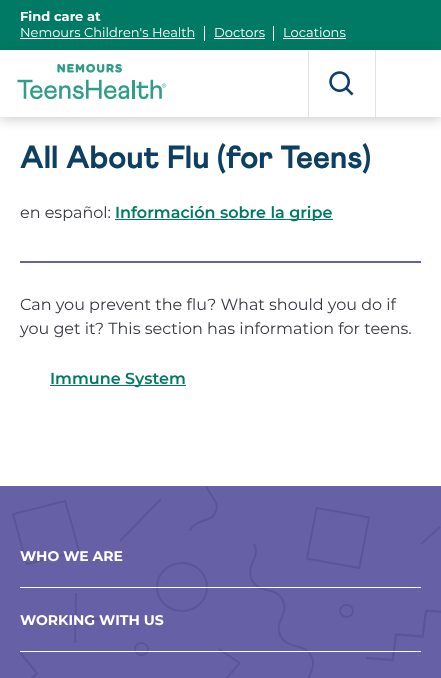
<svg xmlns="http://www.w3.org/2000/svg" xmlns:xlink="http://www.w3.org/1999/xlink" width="441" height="678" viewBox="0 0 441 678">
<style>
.cls-1{font:bold 13px Montserrat;fill:#ffffff}
.cls-2{font:13px Montserrat;fill:#ffffff}
.cls-3{font:800 32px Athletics;fill:#0d3f63}
.cls-4{font:16px Montserrat;fill:#373a41}
.cls-5{font:600 16px Montserrat;fill:#007a64}
.cls-6{font:bold 14px Montserrat;fill:#ffffff}
</style>
<defs>
<clipPath id="clip1"><path d="M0 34H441V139H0ZM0 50H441V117H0Z" clip-rule="evenodd"/></clipPath>
</defs>
<rect width="100%" height="100%" fill="#ffffff"/>
<rect fill="#007a64" x="0" y="0" width="441" height="50"/>
<rect fill="#ffffff" x="20" y="38" width="175" height="1"/>
<rect fill="#ffffff" x="204" y="26" width="1" height="15"/>
<rect fill="#ffffff" x="214" y="38" width="51" height="1"/>
<rect fill="#ffffff" x="273" y="26" width="1" height="15"/>
<rect fill="#ffffff" x="283" y="38" width="63" height="1"/>
<g clip-path="url(#clip1)">
<rect fill="#000000" fill-opacity="0.18" filter="blur(6px)" x="0" y="53" width="441" height="67"/>
</g>
<image xlink:href="image0.png" x="17" y="63" width="150" height="37"/>
<image xlink:href="image1.png" x="329" y="71" width="25" height="25"/>
<rect fill="#e0e2e9" x="308" y="50" width="1" height="67"/>
<rect fill="#e0e2e9" x="375" y="50" width="1" height="67"/>
<rect fill="#6660a6" x="20" y="261" width="401" height="2"/>
<rect fill="#007a64" x="115" y="219" width="218" height="1"/>
<rect fill="#007a64" x="50" y="385" width="136" height="1"/>
<rect fill="#6660a6" x="0" y="486" width="441" height="192"/>
<image xlink:href="image2.png" x="12" y="486" width="429" height="192"/>
<rect fill="#ffffff" x="20" y="587" width="401" height="1"/>
<rect fill="#ffffff" x="20" y="651" width="401" height="1"/>
<text class="cls-1" x="20" y="21">Find care at</text>
<text class="cls-2" x="20" y="37">Nemours Children's Health</text>
<text class="cls-2" x="214" y="37">Doctors</text>
<text class="cls-2" x="283" y="37">Locations</text>
<text class="cls-3" x="20" y="168">All About Flu (for Teens)</text>
<text class="cls-4" x="20" y="218">en español:</text>
<text class="cls-5" x="115" y="218">Información sobre la gripe</text>
<text class="cls-4"><tspan x="20" y="310">Can you prevent the flu? What should you do if</tspan><tspan x="20" y="334">you get it? This section has information for teens.</tspan></text>
<text class="cls-5" x="50" y="384">Immune System</text>
<text class="cls-6" x="20" y="561">WHO WE ARE</text>
<text class="cls-6" x="20" y="625">WORKING WITH US</text>
</svg>
